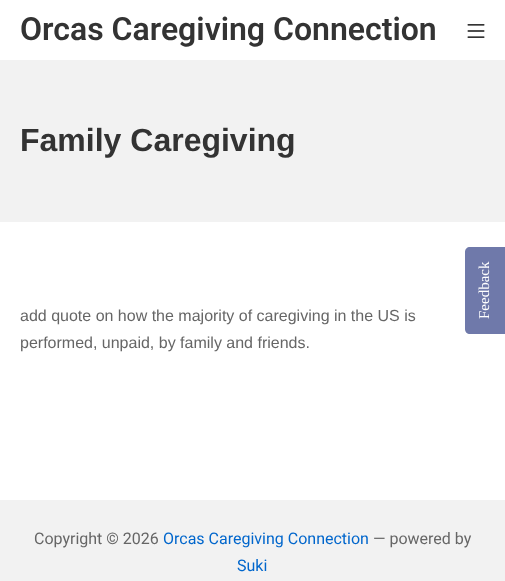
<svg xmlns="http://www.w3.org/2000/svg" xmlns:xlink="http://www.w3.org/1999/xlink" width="505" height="581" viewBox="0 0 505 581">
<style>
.cls-1{font:600 32px Roboto;fill:#333333}
.cls-2{font:bold 32px Liberation Sans;fill:#333333}
.cls-3{font:16px Liberation Sans;fill:#666666}
.cls-4{font:16px Roboto;fill:#666666}
.cls-5{font:16px Roboto;fill:#0066cc}
.cls-6{font:15px Liberation Serif;fill:#ffffff}
</style>
<rect width="100%" height="100%" fill="#ffffff"/>
<image xlink:href="image0.png" x="467" y="24" width="18" height="14"/>
<rect fill="#f2f2f2" x="0" y="60" width="505" height="162"/>
<rect fill="#f2f2f2" x="0" y="500" width="505" height="81"/>
<path fill="#6f79aa" d="M465 329V252C465 249 467 247 470 247H505V334H470C467 334 465 332 465 329Z"/>
<text class="cls-1" x="20" y="40">Orcas Caregiving Connection</text>
<text class="cls-2" x="20" y="151">Family Caregiving</text>
<text class="cls-3"><tspan x="20" y="321">add quote on how the majority of caregiving in the US is</tspan><tspan x="20" y="348">performed, unpaid, by family and friends.</tspan></text>
<text class="cls-4" x="34" y="544">Copyright © 2026</text>
<text class="cls-5" x="163" y="544">Orcas Caregiving Connection</text>
<text class="cls-4" x="373" y="544">— powered by</text>
<text class="cls-5" x="237" y="571">Suki</text>
<text class="cls-6" x="489" y="319" transform="rotate(-90 489 319)">Feedback</text>
</svg>
